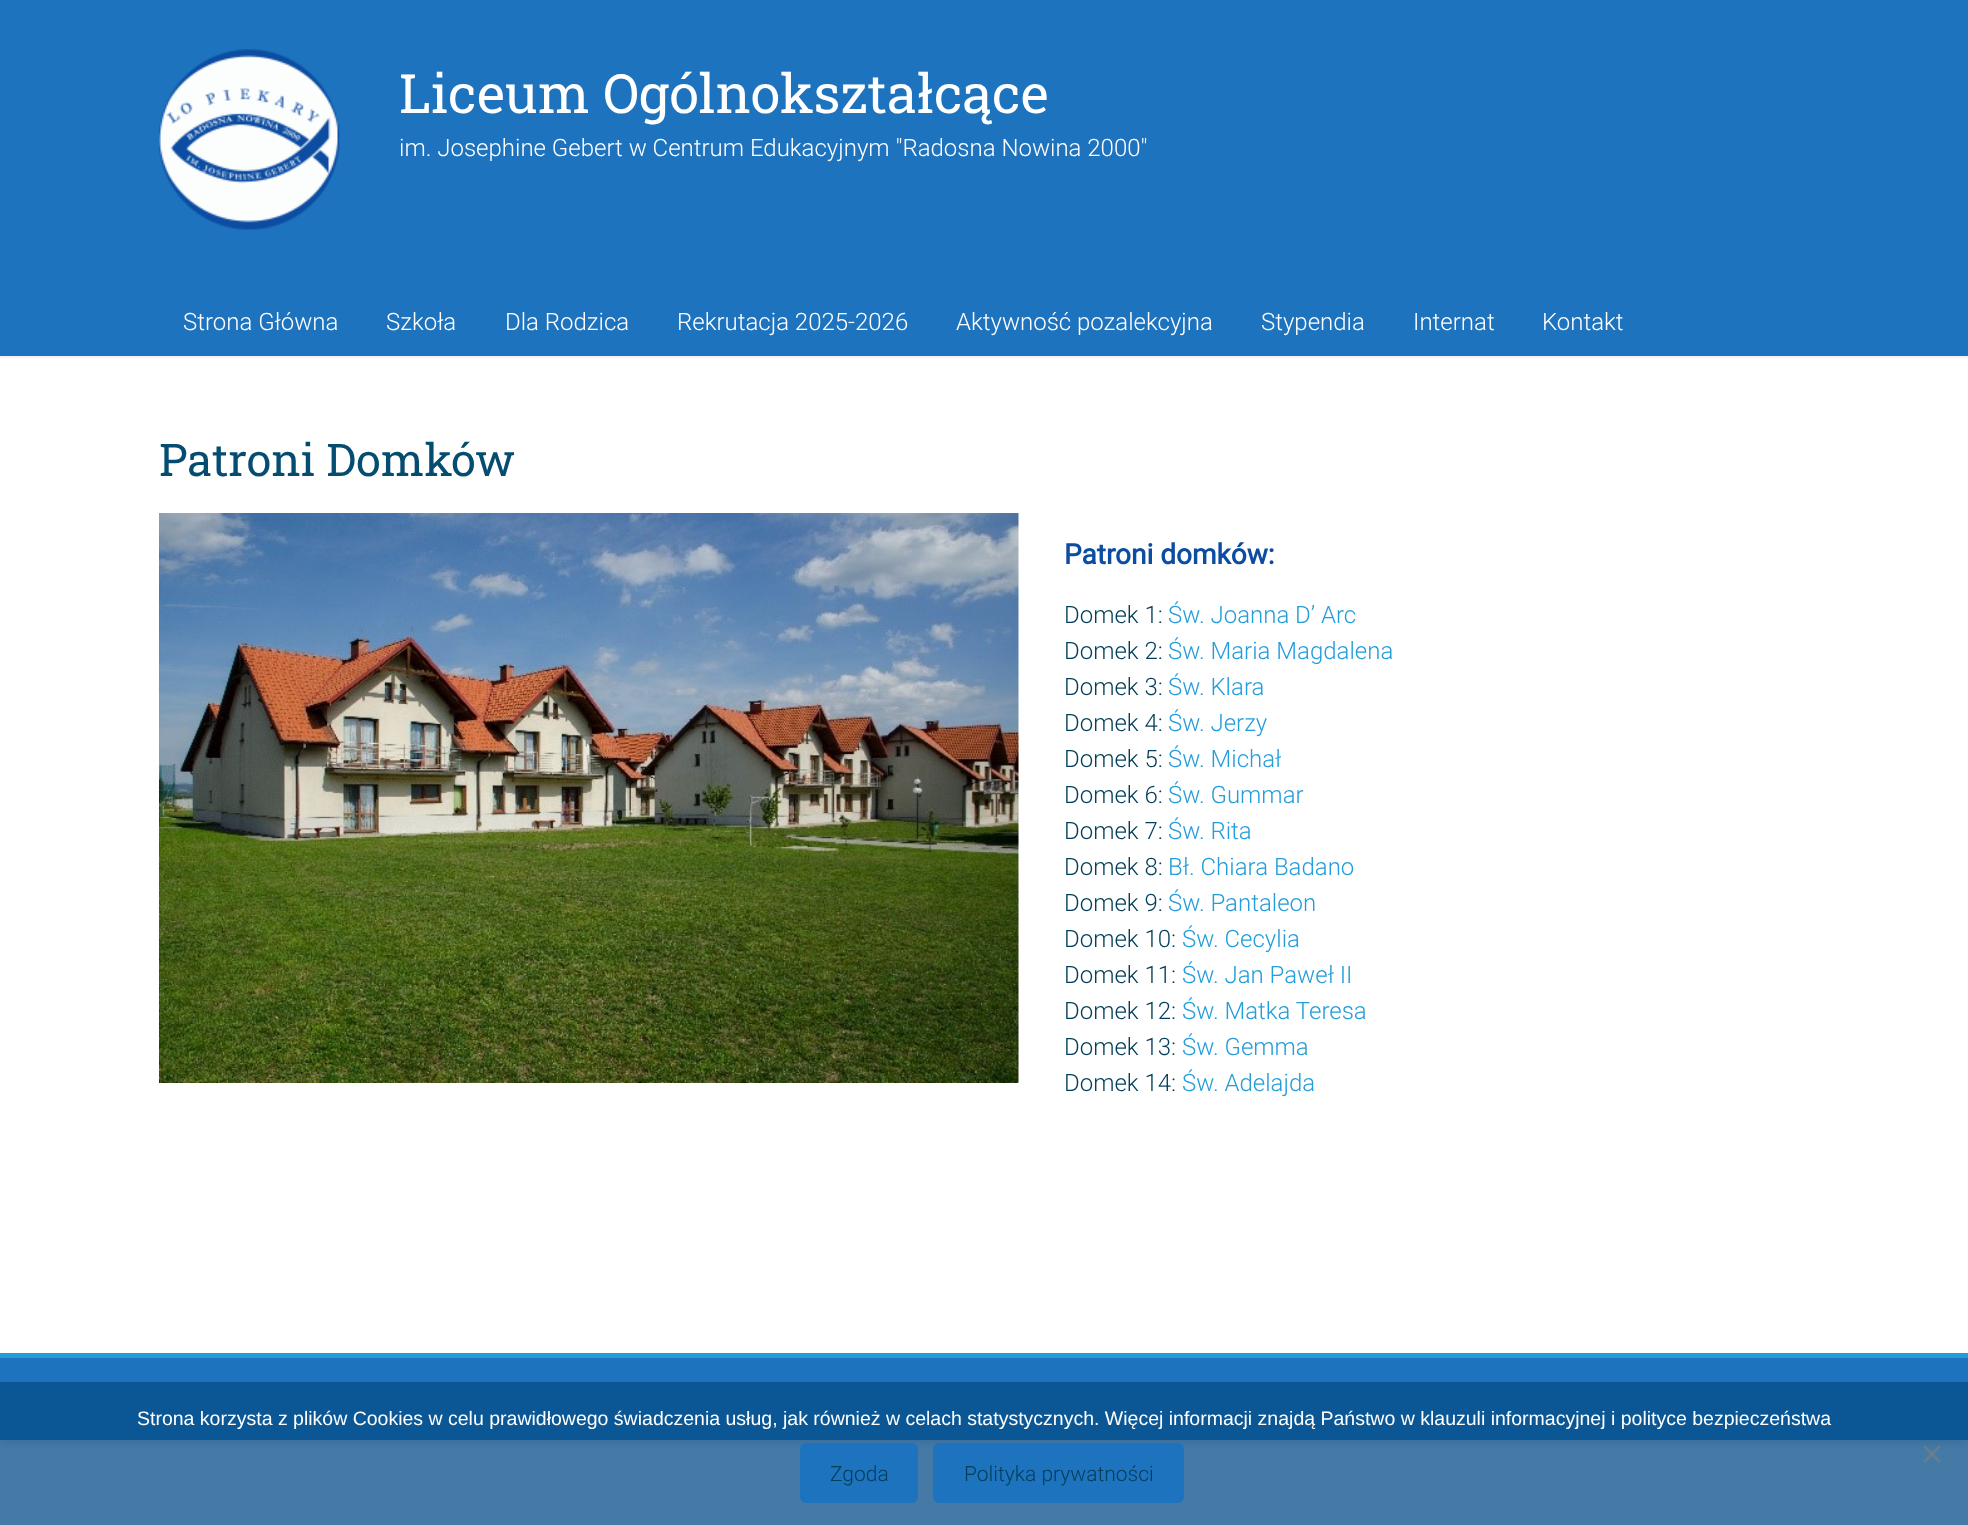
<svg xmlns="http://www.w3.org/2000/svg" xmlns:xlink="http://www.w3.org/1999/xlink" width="1968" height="1525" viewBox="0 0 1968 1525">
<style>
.cls-1{font:54px Roboto Slab;fill:#ffffff}
.cls-2{font:300 24px Roboto;fill:#ffffff}
.cls-3{font:45px Roboto Slab;fill:#044c70}
.cls-4{font:bold 28px Roboto;fill:#0c4da2}
.cls-5{font:300 24px Roboto;fill:#003e59}
.cls-6{font:300 24px Roboto;fill:#239ddb}
.cls-7{font:19.5px Liberation Sans;fill:#ffffff}
.cls-8{font:300 21px Roboto;fill:#003e59}
</style>
<defs>
<clipPath id="clip1"><rect x="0" y="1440" width="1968" height="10"/></clipPath>
</defs>
<rect width="100%" height="100%" fill="#ffffff"/>
<g clip-path="url(#clip1)">
<rect fill="#646464" fill-opacity="0.3" filter="blur(4.5px)" x="0" y="3" width="1968" height="1440"/>
</g>
<rect fill="#1e73be" x="0" y="0" width="1968" height="356"/>
<rect fill="#f2f2f2" x="0" y="356" width="1968" height="2"/>
<image xlink:href="image0.png" x="159" y="49" width="181" height="181"/>
<image xlink:href="image1.png" x="159" y="513" width="860" height="570"/>
<rect fill="#1e73be" x="0" y="1358" width="1968" height="82"/>
<rect fill="#239ddb" x="0" y="1353" width="1968" height="5"/>
<rect fill="#054e87" fill-opacity="0.75" x="0" y="1382" width="1968" height="143"/>
<path fill="#808080" fill-opacity="0.5" d="M1939 1445L1941 1447.5L1925 1463.5L1923 1461Z"/>
<path fill="#808080" fill-opacity="0.5" d="M1923 1447.5L1925 1445L1941 1461L1939 1463.5Z"/>
<rect fill="#1e73be" x="800" y="1443" width="118" height="60" rx="6"/>
<rect fill="#1e73be" x="933" y="1443" width="251" height="60" rx="6"/>
<text class="cls-1" x="399" y="113">Liceum Ogólnokształcące</text>
<text class="cls-2" x="399" y="156">im. Josephine Gebert w Centrum Edukacyjnym "Radosna Nowina 2000"</text>
<text class="cls-2" x="183" y="330">Strona Główna</text>
<text class="cls-2" x="386" y="330">Szkoła</text>
<text class="cls-2" x="505" y="330">Dla Rodzica</text>
<text class="cls-2" x="677" y="330">Rekrutacja 2025-2026</text>
<text class="cls-2" x="956" y="330">Aktywność pozalekcyjna</text>
<text class="cls-2" x="1261" y="330">Stypendia</text>
<text class="cls-2" x="1413" y="330">Internat</text>
<text class="cls-2" x="1542" y="330">Kontakt</text>
<text class="cls-3" x="159" y="476">Patroni Domków</text>
<text class="cls-4" x="1064" y="564">Patroni domków:</text>
<text class="cls-5" x="1064" y="623">Domek 1:</text>
<text class="cls-6" x="1168" y="623">Św. Joanna D’ Arc</text>
<text class="cls-5" x="1064" y="659">Domek 2:</text>
<text class="cls-6" x="1168" y="659">Św. Maria Magdalena</text>
<text class="cls-5" x="1064" y="695">Domek 3:</text>
<text class="cls-6" x="1168" y="695">Św. Klara</text>
<text class="cls-5" x="1064" y="731">Domek 4:</text>
<text class="cls-6" x="1168" y="731">Św. Jerzy</text>
<text class="cls-5" x="1064" y="767">Domek 5:</text>
<text class="cls-6" x="1168" y="767">Św. Michał</text>
<text class="cls-5" x="1064" y="803">Domek 6:</text>
<text class="cls-6" x="1168" y="803">Św. Gummar</text>
<text class="cls-5" x="1064" y="839">Domek 7:</text>
<text class="cls-6" x="1168" y="839">Św. Rita</text>
<text class="cls-5" x="1064" y="875">Domek 8:</text>
<text class="cls-6" x="1168" y="875">Bł. Chiara Badano</text>
<text class="cls-5" x="1064" y="911">Domek 9:</text>
<text class="cls-6" x="1168" y="911">Św. Pantaleon</text>
<text class="cls-5" x="1064" y="947">Domek 10:</text>
<text class="cls-6" x="1182" y="947">Św. Cecylia</text>
<text class="cls-5" x="1064" y="983">Domek 11:</text>
<text class="cls-6" x="1182" y="983">Św. Jan Paweł II</text>
<text class="cls-5" x="1064" y="1019">Domek 12:</text>
<text class="cls-6" x="1182" y="1019">Św. Matka Teresa</text>
<text class="cls-5" x="1064" y="1055">Domek 13:</text>
<text class="cls-6" x="1182" y="1055">Św. Gemma</text>
<text class="cls-5" x="1064" y="1091">Domek 14:</text>
<text class="cls-6" x="1182" y="1091">Św. Adelajda</text>
<text class="cls-7" x="137" y="1425">Strona korzysta z plików Cookies w celu prawidłowego świadczenia usług, jak również w celach statystycznych. Więcej informacji znajdą Państwo w klauzuli informacyjnej i polityce bezpieczeństwa</text>
<text class="cls-8" x="830" y="1481">Zgoda</text>
<text class="cls-8" x="964" y="1481">Polityka prywatności</text>
</svg>
